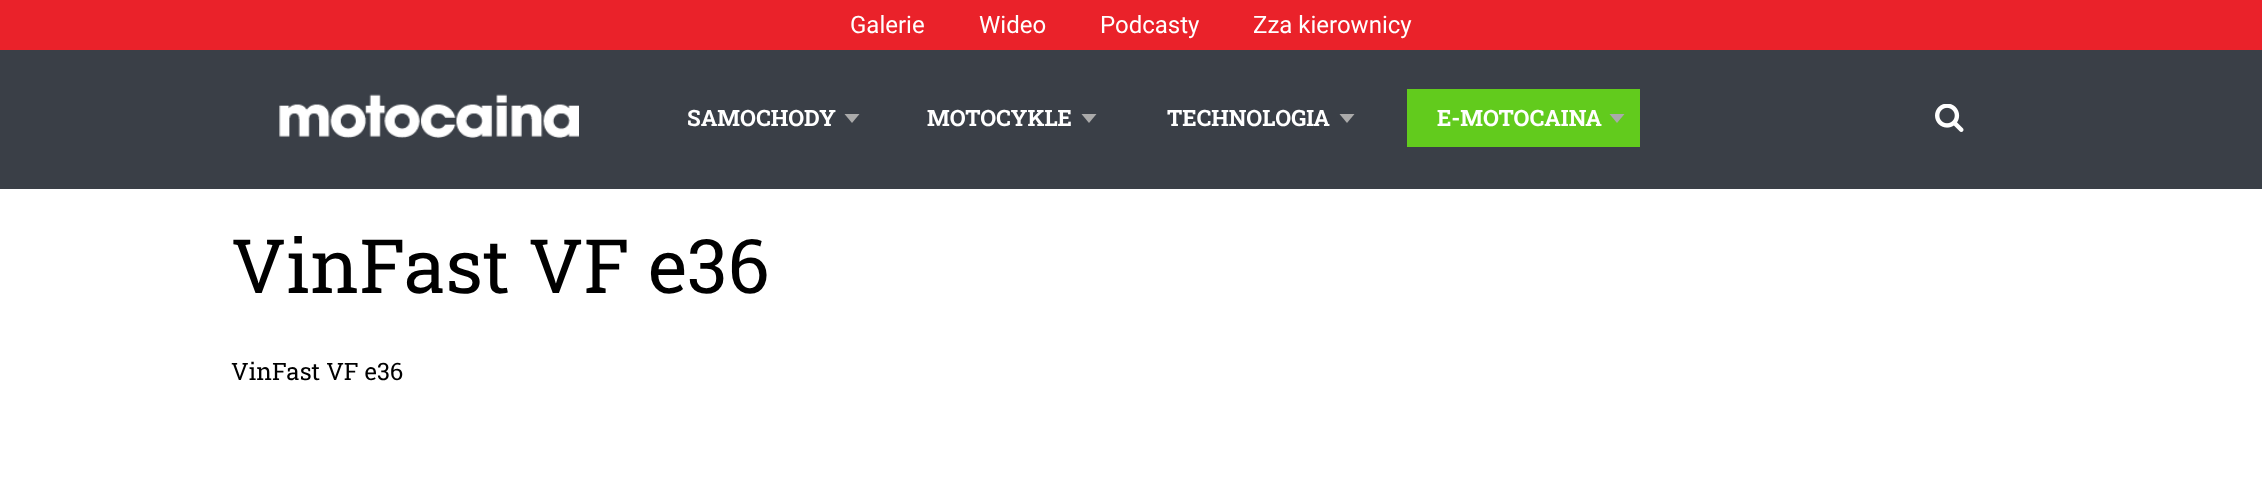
<svg xmlns="http://www.w3.org/2000/svg" xmlns:xlink="http://www.w3.org/1999/xlink" width="2262" height="488" viewBox="0 0 2262 488">
<style>
.cls-1{font:24px Roboto;fill:#ffffff}
.cls-2{font:bold 22.5px Roboto Slab;fill:#ffffff}
.cls-3{font:75px Roboto Slab;fill:#000000}
.cls-4{font:24px Roboto Slab;fill:#000000}
</style>
<rect width="100%" height="100%" fill="#ffffff"/>
<rect fill="#ea222a" x="0" y="0" width="2262" height="50"/>
<rect fill="#3a3f47" x="0" y="50" width="2262" height="139"/>
<image xlink:href="image0.png" x="279" y="94" width="300" height="44"/>
<path fill="#aaaaaa" d="M844.5 114H859.5L852 123Z"/>
<path fill="#aaaaaa" d="M1081.5 114H1096.5L1089 123Z"/>
<path fill="#aaaaaa" d="M1339.5 114H1354.5L1347 123Z"/>
<rect fill="#62cb1d" x="1407" y="89" width="233" height="58"/>
<path fill="#aaaaaa" d="M1609.5 114H1624.5L1617 123Z"/>
<image xlink:href="image1.png" x="1935" y="104" width="29" height="28"/>
<text class="cls-1" x="850" y="33">Galerie</text>
<text class="cls-1" x="979" y="33">Wideo</text>
<text class="cls-1" x="1100" y="33">Podcasty</text>
<text class="cls-1" x="1253" y="33">Zza kierownicy</text>
<text class="cls-2" x="687" y="126">SAMOCHODY</text>
<text class="cls-2" x="927" y="126">MOTOCYKLE</text>
<text class="cls-2" x="1167" y="126">TECHNOLOGIA</text>
<text class="cls-2" x="1437" y="126">E-MOTOCAINA</text>
<text class="cls-3" x="231" y="293">VinFast VF e36</text>
<text class="cls-4" x="231" y="380">VinFast VF e36</text>
</svg>
